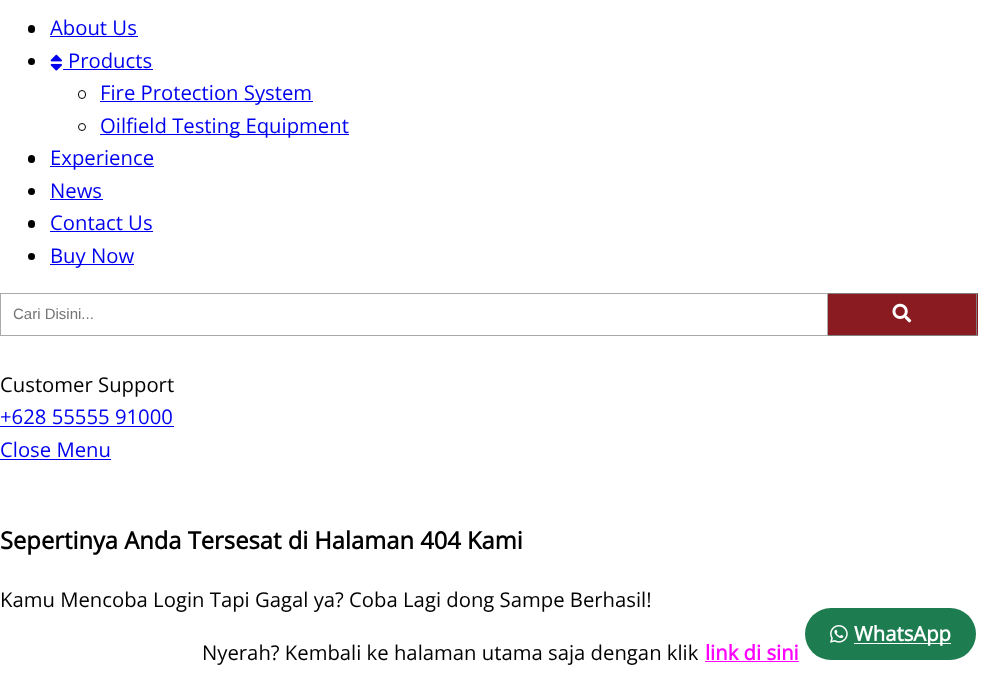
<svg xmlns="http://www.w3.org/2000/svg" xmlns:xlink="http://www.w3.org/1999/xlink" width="1001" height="697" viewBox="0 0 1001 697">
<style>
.cls-1{font:20.3px Open Sans;fill:#0000ee}
.cls-2{font:15px Liberation Sans;fill:#757575}
.cls-3{font:20.3px Open Sans;fill:#000000}
.cls-4{font:bold 23.75px Open Sans;fill:#000000}
.cls-5{font:bold 20.3px Open Sans;fill:#ff00ff}
.cls-6{font:bold 20.3px Open Sans;fill:#ffffff}
</style>
<rect width="100%" height="100%" fill="#ffffff"/>
<rect fill="#000000" x="28" y="25" width="7" height="8" rx="3.5"/>
<rect fill="#0000ee" x="50" y="36" width="88" height="1"/>
<circle fill="#000000" cx="31.5" cy="61.5" r="3.5"/>
<image xlink:href="image0.png" x="50" y="54" width="12" height="17"/>
<rect fill="#0000ee" x="63" y="69" width="90" height="1"/>
<rect fill="none" stroke="#000000" x="78.5" y="90.5" width="7" height="8" rx="3.5"/>
<rect fill="#0000ee" x="100" y="101" width="213" height="1"/>
<circle fill="none" stroke="#000000" cx="82" cy="127" r="3.5"/>
<rect fill="#0000ee" x="100" y="134" width="249" height="1"/>
<rect fill="#000000" x="28" y="155" width="7" height="8" rx="3.5"/>
<rect fill="#0000ee" x="50" y="166" width="104" height="1"/>
<circle fill="#000000" cx="31.5" cy="191.5" r="3.5"/>
<rect fill="#0000ee" x="50" y="199" width="53" height="1"/>
<rect fill="#000000" x="28" y="220" width="7" height="8" rx="3.5"/>
<rect fill="#0000ee" x="50" y="231" width="103" height="1"/>
<circle fill="#000000" cx="31.5" cy="256.5" r="3.5"/>
<rect fill="#0000ee" x="50" y="264" width="84" height="1"/>
<rect fill="none" stroke="#aaaaaa" x="0.5" y="293.5" width="827" height="42"/>
<rect fill="#8a1b21" x="828" y="294" width="150" height="41"/>
<rect fill="#808080" x="828" y="293" width="150" height="1"/>
<rect fill="#808080" x="976" y="293" width="1" height="43"/>
<rect fill="#808080" x="828" y="335" width="150" height="1"/>
<image xlink:href="image1.png" x="892" y="303" width="20" height="20"/>
<rect fill="#0000ee" x="0" y="426" width="174" height="1"/>
<rect fill="#0000ee" x="0" y="459" width="111" height="1"/>
<rect fill="#ff00ff" x="705" y="661" width="94" height="1"/>
<rect fill="#1e7d50" x="805" y="608" width="171" height="52" rx="26"/>
<image xlink:href="image2.png" x="830" y="625" width="18" height="18"/>
<rect fill="#ffffff" x="854" y="643" width="97" height="1"/>
<text class="cls-1" x="50" y="35">About Us</text>
<text class="cls-1" x="68" y="68">Products</text>
<text class="cls-1"><tspan x="100" y="100">Fire Protection System</tspan><tspan x="100" y="133">Oilfield Testing Equipment</tspan></text>
<text class="cls-1"><tspan x="50" y="165">Experience</tspan><tspan x="50" y="198">News</tspan><tspan x="50" y="230">Contact Us</tspan><tspan x="50" y="263">Buy Now</tspan></text>
<text class="cls-2" x="13" y="319">Cari Disini...</text>
<text class="cls-3" x="0" y="392">Customer Support</text>
<text class="cls-1"><tspan x="0" y="424">+628 55555 91000</tspan><tspan x="0" y="457">Close Menu</tspan></text>
<text class="cls-4" x="0" y="549">Sepertinya Anda Tersesat di Halaman 404 Kami</text>
<text class="cls-3" x="0" y="607">Kamu Mencoba Login Tapi Gagal ya? Coba Lagi dong Sampe Berhasil!</text>
<text class="cls-3" x="202" y="660">Nyerah? Kembali ke halaman utama saja dengan klik</text>
<text class="cls-5" x="705" y="660">link di sini</text>
<text class="cls-6" x="854" y="641">WhatsApp</text>
</svg>
